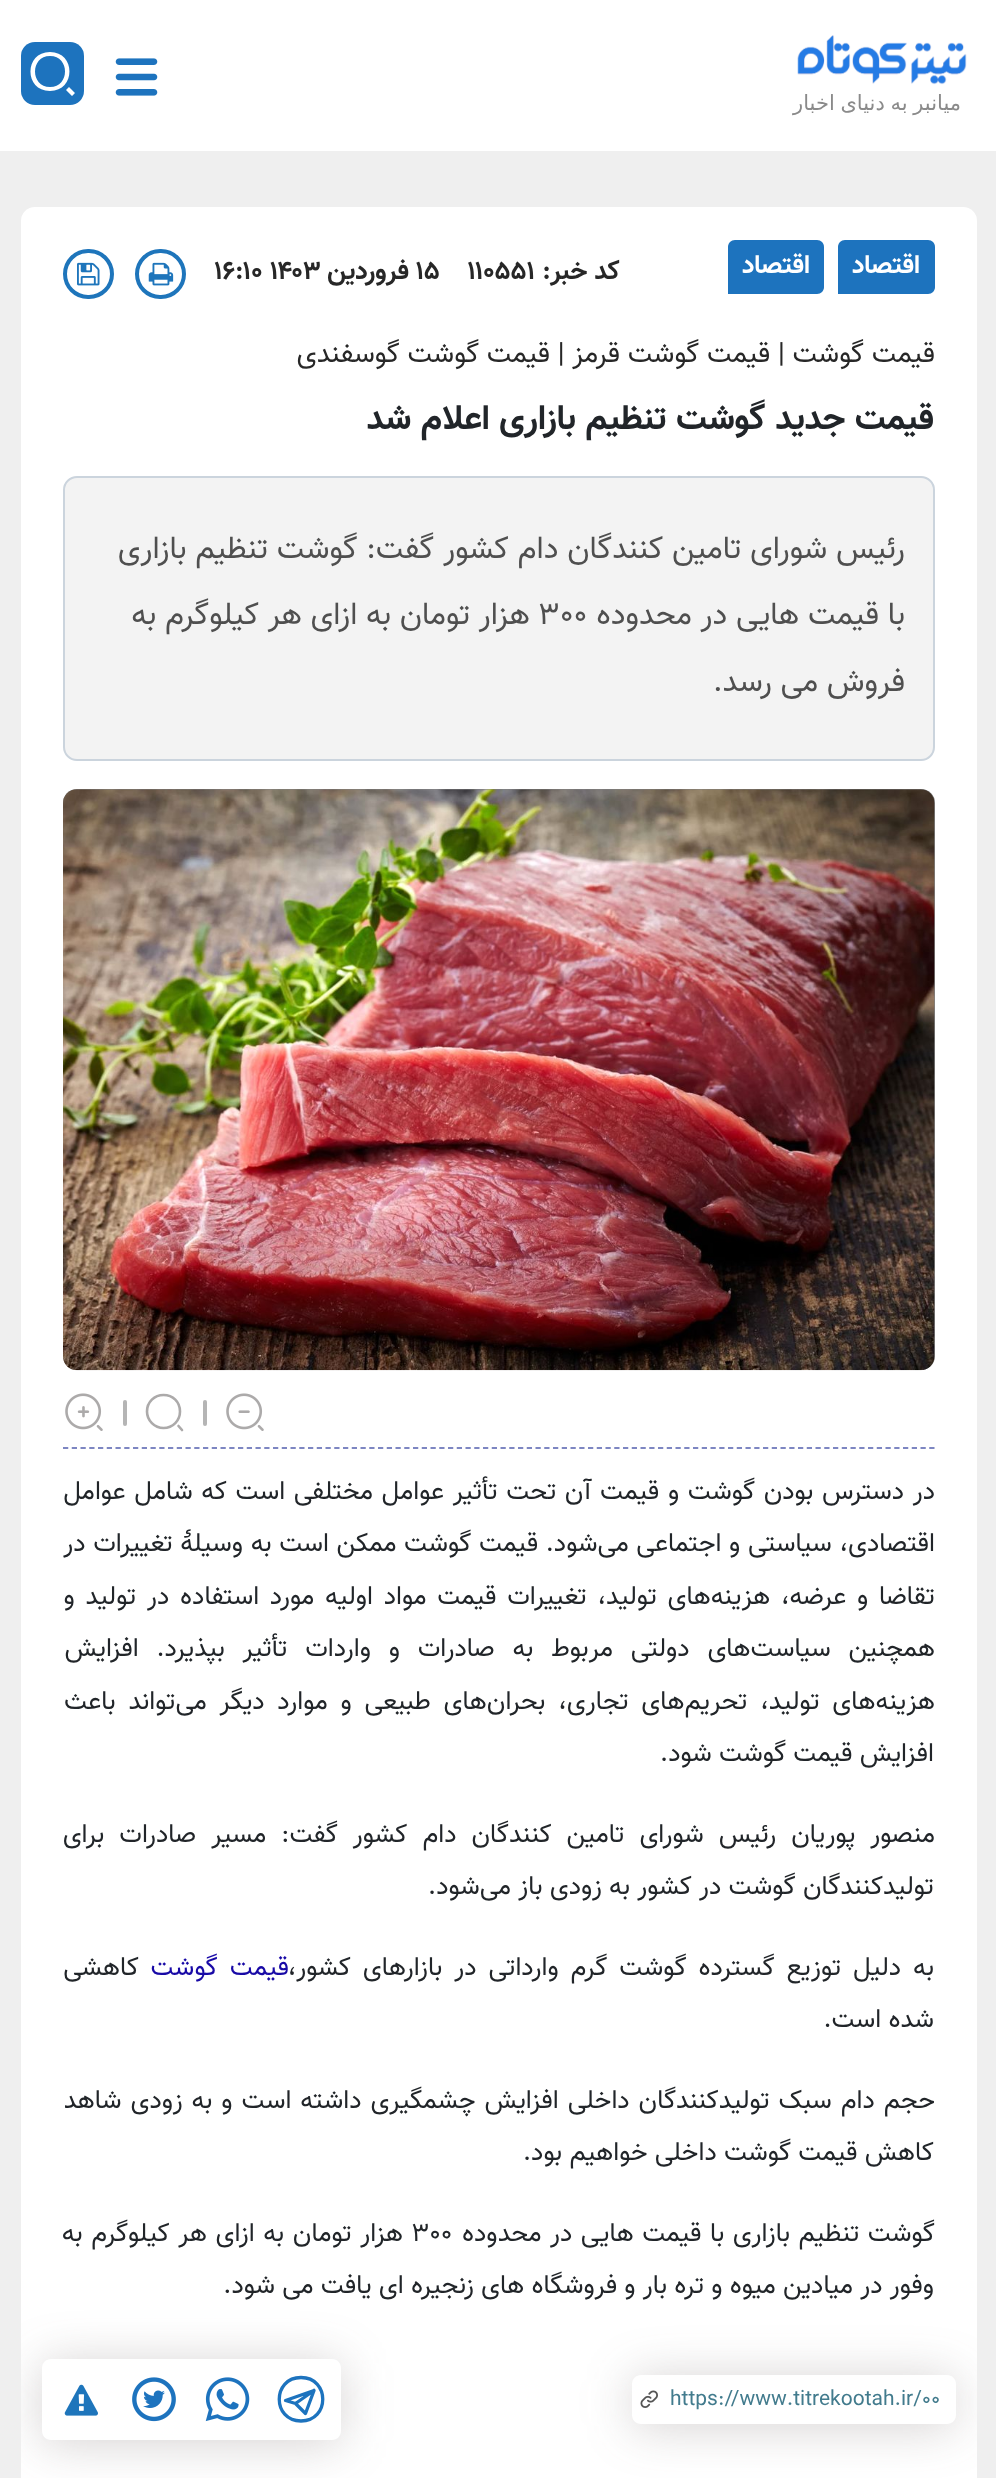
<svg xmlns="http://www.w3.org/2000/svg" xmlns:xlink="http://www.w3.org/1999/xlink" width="996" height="2478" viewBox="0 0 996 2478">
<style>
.cls-1{font:21px DejaVu Sans;direction:rtl;fill:#8a8a8a}
.cls-2{font:bold 26.25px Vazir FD;direction:rtl;fill:#ffffff}
.cls-3{font:bold 26.25px Vazir FD;direction:rtl;fill:#272727}
.cls-4{font:bold 26.25px Vazir FD;fill:#272727}
.cls-5{font:28px Vazir FD;direction:rtl;fill:#272727}
.cls-6{font:bold 35px Vazir FD;direction:rtl;fill:#212529}
.cls-7{font:31.5px Vazir FD;direction:rtl;fill:#4f4f4f}
.cls-8{font:31.5px Vazir FD;fill:#4f4f4f}
.cls-9{font:26.25px Vazir FD;direction:rtl;fill:#212529}
.cls-10{font:26.25px Vazir FD;direction:rtl;fill:#1809a6}
.cls-11{font:26.25px Vazir FD;fill:#212529}
.cls-12{font:21px Vazir FD;fill:#427b8d}
</style>
<defs>
<clipPath id="clip1"><rect x="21" y="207" width="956" height="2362" rx="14"/></clipPath>
<clipPath id="clip2"><path d="M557 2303H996V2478H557ZM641 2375H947C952 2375 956 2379 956 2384V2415C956 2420 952 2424 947 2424H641C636 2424 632 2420 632 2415V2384C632 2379 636 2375 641 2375Z" clip-rule="evenodd"/></clipPath>
<clipPath id="clip3"><path d="M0 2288H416V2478H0ZM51 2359H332C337 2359 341 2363 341 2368V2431C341 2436 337 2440 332 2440H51C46 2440 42 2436 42 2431V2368C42 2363 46 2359 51 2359Z" clip-rule="evenodd"/></clipPath>
</defs>
<rect width="100%" height="100%" fill="#efefef"/>
<rect fill="#ffffff" x="0" y="0" width="996" height="151"/>
<image xlink:href="image0.png" x="797" y="35" width="170" height="50"/>
<image xlink:href="image1.png" x="115" y="58" width="43" height="38"/>
<rect fill="#1d73be" x="21" y="42" width="63" height="63" rx="14"/>
<path fill="#ffffff" d="M50 52C76 52 76 91 50 91C24 91 24 52 50 52ZM50 87C70 87 70 56 50 56C30 56 30 87 50 87ZM69 87L75 93L72 96L66 90Z"/>
<rect fill="#ffffff" x="21" y="207" width="956" height="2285" rx="14"/>
<path fill="#1d73be" d="M845 240H928C932 240 935 243 935 247V287C935 291 932 294 928 294H838V247C838 243 841 240 845 240Z"/>
<path fill="#1d73be" d="M735 240H817C821 240 824 243 824 247V287C824 291 821 294 817 294H728V247C728 243 731 240 735 240Z"/>
<rect fill="none" stroke="#1e75bb" stroke-width="4" x="137" y="251" width="47" height="46" rx="23"/>
<image xlink:href="image2.png" x="148" y="262" width="26" height="24"/>
<rect fill="none" stroke="#1e75bb" stroke-width="4" x="65" y="251" width="47" height="46" rx="23"/>
<image xlink:href="image3.png" x="77" y="262" width="23" height="24"/>
<rect fill="#f3f3f3" stroke="#cbd4dd" stroke-width="2" x="64" y="477" width="870" height="283" rx="13"/>
<rect fill="#808080" x="63" y="789" width="872" height="581" rx="14"/>
<image xlink:href="image4.png" x="63" y="789" width="872" height="582"/>
<path fill="none" stroke="#7d86c2" stroke-width="1.8" stroke-dasharray="5.25 3.5" d="M63 1448H934.5"/>
<image xlink:href="image5.png" x="226" y="1393" width="38" height="38"/>
<rect fill="#b5b5b5" x="203" y="1400" width="4" height="26" rx="2"/>
<path fill="none" stroke="#acaaaa" stroke-width="2.6" stroke-linecap="round" stroke-linejoin="round" d="M163.5 1428C173 1428 180 1420.5 180 1411.5C180 1402 173 1395 163.5 1395C154.5 1395 147 1402 147 1411.5C147 1420.5 154.5 1428 163.5 1428ZM182 1430L178.5 1426"/>
<rect fill="#b5b5b5" x="123" y="1400" width="4" height="26" rx="2"/>
<image xlink:href="image6.png" x="65" y="1393" width="38" height="38"/>
<g clip-path="url(#clip1)">
<g clip-path="url(#clip2)">
<rect fill="#544848" fill-opacity="0.25" filter="blur(24.5px)" x="632" y="2378" width="324" height="49" rx="9"/>
</g>
</g>
<image xlink:href="image7.png" x="640" y="2390" width="18" height="18"/>
<g clip-path="url(#clip1)">
<g clip-path="url(#clip3)">
<rect fill="#544848" fill-opacity="0.25" filter="blur(24.5px)" x="42" y="2363" width="299" height="80" rx="9"/>
</g>
</g>
<path fill="none" stroke="#1d73be" stroke-width="3.3" stroke-linecap="round" stroke-linejoin="round" d="M314 2390.5L285.5 2400.5L295.5 2403.5M314 2390.5L295.5 2403.5M314 2390.5L305.5 2413.5L295.5 2403.5M301 2421C330 2421 330 2377.5 301 2377.5C272 2377.5 272 2421 301 2421Z"/>
<image xlink:href="image8.png" x="205" y="2377" width="45" height="45"/>
<image xlink:href="image9.png" x="132" y="2377" width="44" height="45"/>
<image xlink:href="image10.png" x="64" y="2384" width="34" height="32"/>
<text class="cls-1" x="961" y="110" word-spacing="-1">میانبر به دنیای اخبار</text>
<text class="cls-2" x="920" y="273">اقتصاد</text>
<text class="cls-2" x="810" y="273">اقتصاد</text>
<text class="cls-3" x="620" y="279">کد خبر:</text>
<text class="cls-4" x="468" y="279">۱۱۰۵۵۱</text>
<text class="cls-4" x="416" y="279">۱۵</text>
<text class="cls-3" x="409" y="279">فروردين</text>
<text class="cls-4" x="214" y="279">۱۶:۱۰ ۱۴۰۳</text>
<text class="cls-5" x="935" y="362">قیمت گوشت | قیمت گوشت قرمز | قیمت گوشت گوسفندی</text>
<text class="cls-6" x="934" y="429">قیمت جدید گوشت تنظیم بازاری اعلام شد</text>
<text class="cls-7" x="905" y="558">رئیس شورای تامین کنندگان دام کشور</text>
<text class="cls-7" x="434" y="558">گفت: گوشت تنظیم بازاری</text>
<text class="cls-7" x="905" y="624">با قیمت هایی در محدوده</text>
<text class="cls-8" x="539" y="624">۳۰۰</text>
<text class="cls-7" x="530" y="624">هزار تومان به ازای هر کیلوگرم به</text>
<text class="cls-7" x="905" y="691">فروش می رسد.</text>
<text class="cls-9"><tspan x="935" y="1499" word-spacing="1.4">در دسترس بودن گوشت و قیمت آن تحت تأثیر عوامل مختلفی است که شامل عوامل</tspan><tspan x="935" y="1551" word-spacing="0.4">اقتصادی، سیاستی و اجتماعی می‌شود. قیمت گوشت ممکن است به وسیلهٔ تغییرات در</tspan></text>
<text class="cls-9"><tspan x="935" y="1604" word-spacing="3.5">تقاضا و عرضه، هزینه‌های تولید، تغییرات قیمت مواد اولیه مورد استفاده در تولید و</tspan><tspan x="935" y="1656" word-spacing="10.5">همچنین سیاست‌های دولتی مربوط به صادرات و واردات تأثیر بپذیرد. افزایش</tspan></text>
<text class="cls-9" x="935" y="1709" word-spacing="5.5">هزینه‌های تولید، تحریم‌های تجاری، بحران‌های طبیعی و موارد دیگر می‌تواند باعث</text>
<text class="cls-9" x="934" y="1761">افزایش قیمت گوشت شود.</text>
<text class="cls-9" x="935" y="1842" word-spacing="7.75">منصور پوریان رئیس شورای تامین کنندگان دام کشور گفت: مسیر صادرات برای</text>
<text class="cls-9" x="934" y="1894">تولیدکنندگان گوشت در کشور به زودی باز می‌شود.</text>
<text class="cls-9" x="934" y="1975" word-spacing="4.75">به دلیل توزیع گسترده گوشت گرم وارداتی در بازارهای کشور،</text>
<text class="cls-10" x="289" y="1975" word-spacing="4.75">قیمت گوشت</text>
<text class="cls-9" x="139" y="1975">کاهشی</text>
<text class="cls-9" x="934" y="2027">شده است.</text>
<text class="cls-9" x="935" y="2108" word-spacing="1.75">حجم دام سبک تولیدکنندگان داخلی افزایش چشمگیری داشته است و به زودی شاهد</text>
<text class="cls-9" x="934" y="2160">کاهش قیمت گوشت داخلی خواهیم بود.</text>
<text class="cls-9" x="935" y="2241" word-spacing="1.25">گوشت تنظیم بازاری با قیمت هایی در محدوده</text>
<text class="cls-11" x="412" y="2241">۳۰۰</text>
<text class="cls-9" x="403" y="2241" word-spacing="1.5">هزار تومان به ازای هر کیلوگرم به</text>
<text class="cls-9" x="934" y="2293">وفور در میادین میوه و تره بار و فروشگاه های زنجیره ای یافت می شود.</text>
<text class="cls-12" x="670" y="2405">https://www.titrekootah.ir/00</text>
</svg>
